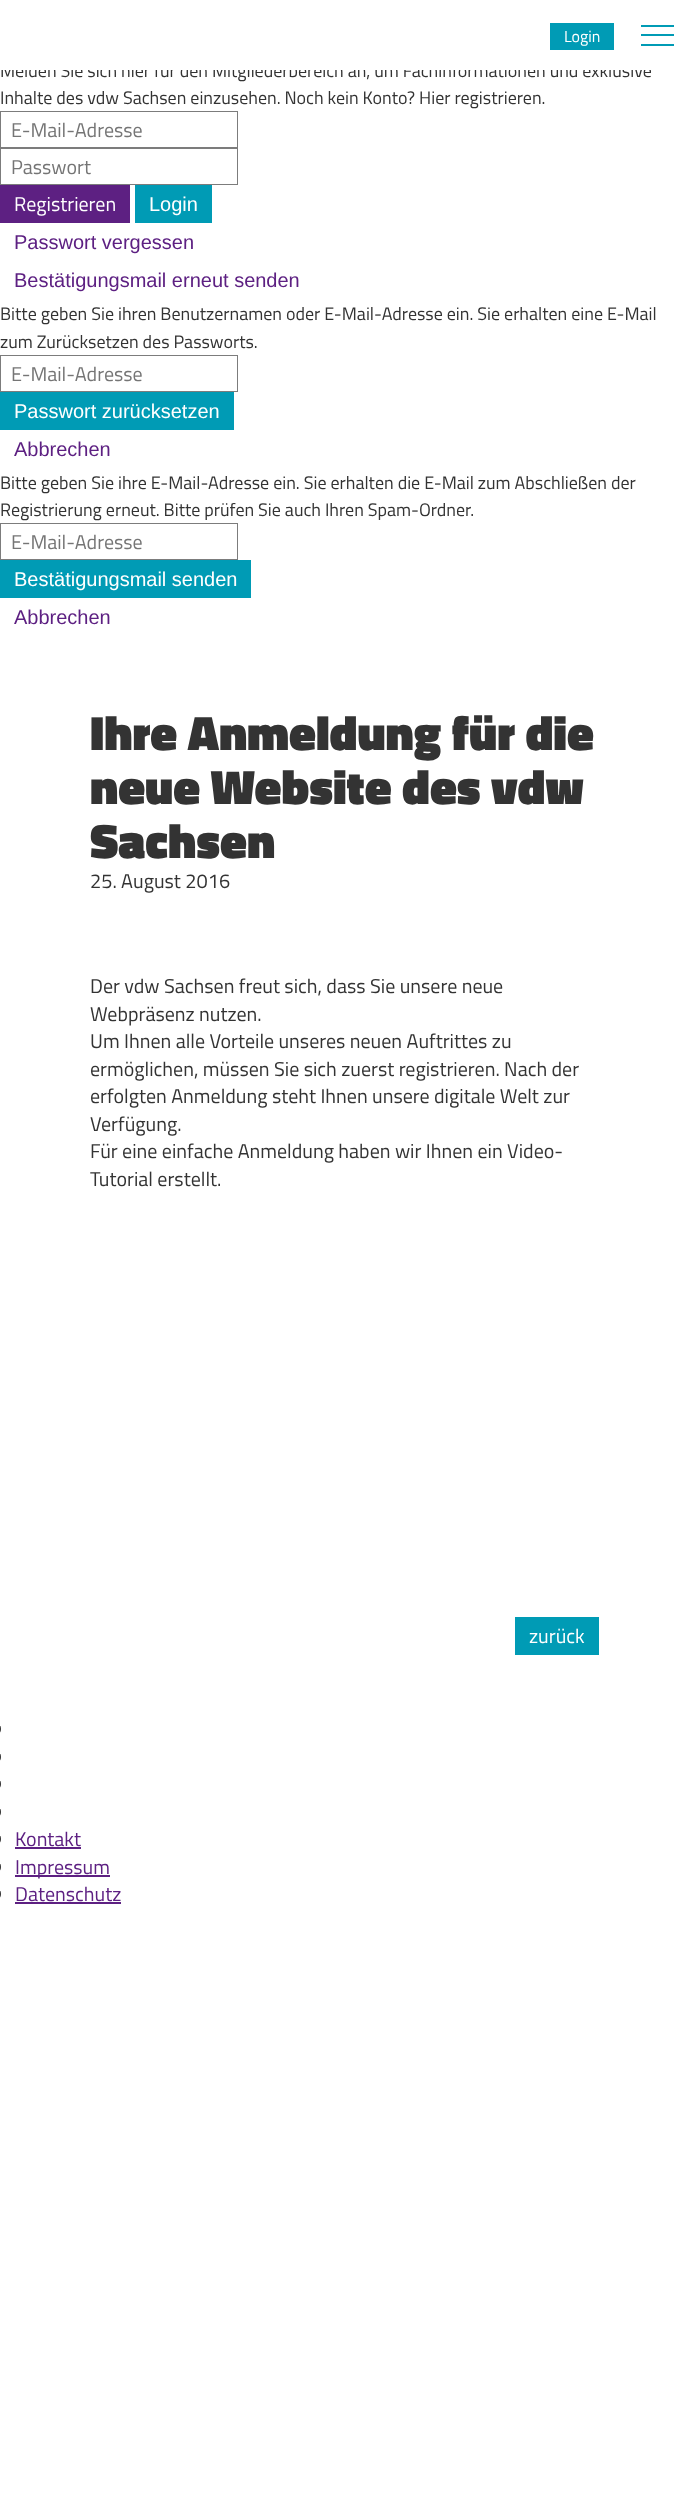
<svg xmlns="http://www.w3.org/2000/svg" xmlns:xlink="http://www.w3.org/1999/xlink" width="689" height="2507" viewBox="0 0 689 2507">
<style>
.cls-1{font:16px Titillium Web;fill:#ffffff}
.cls-2{font:18px Titillium Web;fill:#333333}
.cls-3{font:20px Titillium Web;fill:#757575}
.cls-4{font:20px Titillium Web;fill:#ffffff}
.cls-5{font:20px Liberation Sans;fill:#ffffff}
.cls-6{font:20px Liberation Sans;fill:#5d2082}
.cls-7{font:900 48.75px Titillium Web;fill:#333333}
.cls-8{font:20px Titillium Web;fill:#333333}
.cls-9{font:20px Titillium Web;fill:#5d2082}
</style>
<rect width="100%" height="100%" fill="#ffffff"/>
<rect fill="#009bb5" x="550" y="23" width="64" height="27"/>
<rect fill="#009bb5" x="641" y="25" width="33" height="2"/>
<rect fill="#009bb5" x="641" y="34" width="33" height="2"/>
<rect fill="#009bb5" x="641" y="44" width="33" height="2"/>
<rect fill="none" stroke="#7c7c7c" x="0.5" y="111.5" width="237" height="36"/>
<rect fill="none" stroke="#7c7c7c" x="0.5" y="148.5" width="237" height="36"/>
<rect fill="#5d2082" x="0" y="185" width="130" height="38"/>
<rect fill="#009bb5" x="135" y="185" width="77" height="38"/>
<rect fill="none" stroke="#7c7c7c" x="0.5" y="355.5" width="237" height="36"/>
<rect fill="#009bb5" x="0" y="392" width="234" height="38"/>
<rect fill="none" stroke="#7c7c7c" x="0.5" y="523.5" width="237" height="36"/>
<rect fill="#009bb5" x="0" y="560" width="251" height="38"/>
<rect fill="#009bb5" x="515" y="1617" width="84" height="38"/>
<rect fill="#333333" x="-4" y="1725" width="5" height="8" rx="4"/>
<rect fill="#333333" x="-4" y="1753" width="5" height="8" rx="4"/>
<rect fill="#333333" x="-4" y="1780" width="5" height="8" rx="4"/>
<rect fill="#333333" x="-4" y="1808" width="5" height="8" rx="4"/>
<rect fill="#333333" x="-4" y="1835" width="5" height="8" rx="4"/>
<rect fill="#5d2082" x="15" y="1847" width="66" height="2"/>
<rect fill="#333333" x="-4" y="1863" width="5" height="8" rx="4"/>
<rect fill="#5d2082" x="15" y="1875" width="95" height="2"/>
<rect fill="#333333" x="-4" y="1890" width="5" height="8" rx="4"/>
<rect fill="#5d2082" x="15" y="1902" width="106" height="2"/>
<text class="cls-1" x="564" y="42">Login</text>
<text class="cls-2" x="0" y="77">Melden Sie sich hier für den Mitgliederbereich an, um Fachinformationen und exklusive</text>
<rect fill="#ffffff" x="1" y="63" width="650" height="7"/>
<text class="cls-2" x="0" y="104">Inhalte des vdw Sachsen einzusehen. Noch kein Konto? Hier registrieren.</text>
<text class="cls-3"><tspan x="11" y="137">E-Mail-Adresse</tspan><tspan x="11" y="174">Passwort</tspan></text>
<text class="cls-4" x="14" y="211">Registrieren</text>
<text class="cls-5" x="149" y="211">Login</text>
<text class="cls-6"><tspan x="14" y="249">Passwort vergessen</tspan><tspan x="14" y="287">Bestätigungsmail erneut senden</tspan></text>
<text class="cls-2"><tspan x="0" y="320">Bitte geben Sie ihren Benutzernamen oder E-Mail-Adresse ein. Sie erhalten eine E-Mail</tspan><tspan x="0" y="348">zum Zurücksetzen des Passworts.</tspan></text>
<text class="cls-3" x="11" y="381">E-Mail-Adresse</text>
<text class="cls-5" x="14" y="418">Passwort zurücksetzen</text>
<text class="cls-6" x="14" y="456">Abbrechen</text>
<text class="cls-2"><tspan x="0" y="489">Bitte geben Sie ihre E-Mail-Adresse ein. Sie erhalten die E-Mail zum Abschließen der</tspan><tspan x="0" y="516">Registrierung erneut. Bitte prüfen Sie auch Ihren Spam-Ordner.</tspan></text>
<text class="cls-3" x="11" y="549">E-Mail-Adresse</text>
<text class="cls-5" x="14" y="586">Bestätigungsmail senden</text>
<text class="cls-6" x="14" y="624">Abbrechen</text>
<text class="cls-7"><tspan x="90" y="750">Ihre Anmeldung für die</tspan><tspan x="90" y="804">neue Website des vdw</tspan><tspan x="90" y="858">Sachsen</tspan></text>
<text class="cls-8" x="90" y="888">25. August 2016</text>
<text class="cls-8"><tspan x="90" y="993">Der vdw Sachsen freut sich, dass Sie unsere neue</tspan><tspan x="90" y="1021">Webpräsenz nutzen.</tspan><tspan x="90" y="1048">Um Ihnen alle Vorteile unseres neuen Auftrittes zu</tspan><tspan x="90" y="1076">ermöglichen, müssen Sie sich zuerst registrieren. Nach der</tspan><tspan x="90" y="1103">erfolgten Anmeldung steht Ihnen unsere digitale Welt zur</tspan><tspan x="90" y="1131">Verfügung.</tspan><tspan x="90" y="1158">Für eine einfache Anmeldung haben wir Ihnen ein Video-</tspan><tspan x="90" y="1186">Tutorial erstellt.</tspan></text>
<text class="cls-4" x="529" y="1643">zurück</text>
<text class="cls-9"><tspan x="15" y="1846">Kontakt</tspan><tspan x="15" y="1874">Impressum</tspan><tspan x="15" y="1901">Datenschutz</tspan></text>
</svg>
